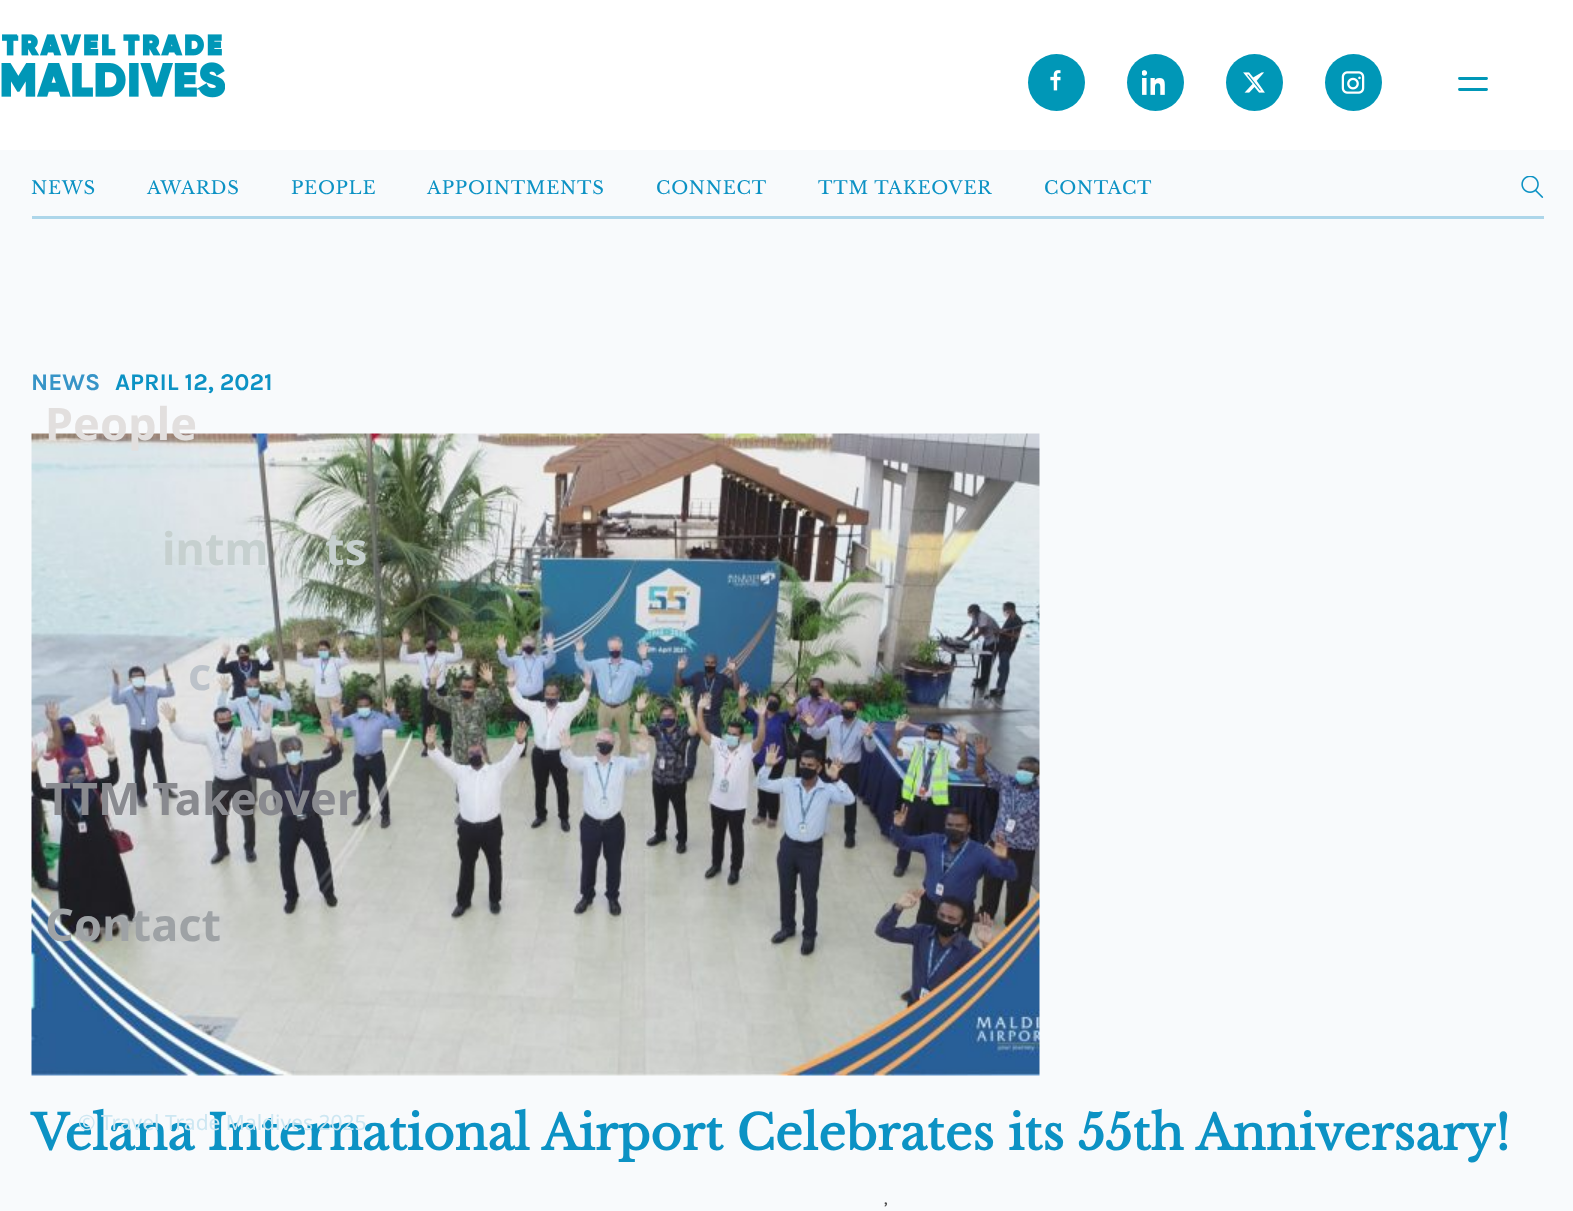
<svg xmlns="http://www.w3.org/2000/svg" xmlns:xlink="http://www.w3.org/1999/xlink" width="1573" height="1211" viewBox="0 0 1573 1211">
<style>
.cls-1{font:18px Libre Baskerville;letter-spacing:0.75px;fill:#0c92c4}
.cls-2{font:bold 24px Karla;fill:#3794c7}
.cls-3{font:bold 24px Karla;fill:#0c92c4}
.cls-4{font:bold 48px Libre Baskerville;fill:#0c92c4}
.cls-5{font:300 24px Karla;fill:#4d4d4d}
.cls-6{font:bold 45px Noto Sans;letter-spacing:0.1px;fill:#e2dfde}
.cls-7{font:bold 45px Noto Sans;letter-spacing:0.1px;fill:#c6d0cf}
.cls-8{font:bold 45px Noto Sans;letter-spacing:0.1px;fill:#bcc2c9}
.cls-9{font:bold 45px Noto Sans;letter-spacing:0.1px;fill:#898a8f}
.cls-10{font:bold 45px Noto Sans;letter-spacing:0.1px;fill:#9ea2a5}
.cls-11{font:21px Noto Sans;fill:#cde7f2}
</style>
<rect width="100%" height="100%" fill="#f8fafc"/>
<rect fill="#add6ea" x="32" y="216" width="1512" height="3"/>
<image xlink:href="image0.png" x="1521" y="176" width="23" height="22"/>
<image xlink:href="image1.png" x="31" y="433" width="1009" height="643"/>
<rect fill="#ffffff" x="0" y="0" width="1573" height="150"/>
<image xlink:href="image2.png" x="1" y="34" width="224" height="64"/>
<circle fill="#0097b7" cx="1056.5" cy="82.5" r="28.5"/>
<image xlink:href="image3.png" x="1050" y="70" width="11" height="21"/>
<circle fill="#0097b7" cx="1155.5" cy="82.5" r="28.5"/>
<image xlink:href="image4.png" x="1142" y="70" width="23" height="25"/>
<circle fill="#0097b7" cx="1254.5" cy="82.5" r="28.5"/>
<image xlink:href="image5.png" x="1243" y="72" width="22" height="21"/>
<circle fill="#0097b7" cx="1353.5" cy="82.5" r="28.5"/>
<image xlink:href="image6.png" x="1341" y="71" width="24" height="23"/>
<path fill="none" stroke="#0097b7" stroke-width="2.9" stroke-linecap="round" d="M1459.5 78.5H1486.5M1459.5 89.5H1486.5"/>
<text class="cls-1" x="31" y="194">NEWS</text>
<text class="cls-1" x="147" y="194">AWARDS</text>
<text class="cls-1" x="291" y="194">PEOPLE</text>
<text class="cls-1" x="427" y="194">APPOINTMENTS</text>
<text class="cls-1" x="656" y="194">CONNECT</text>
<text class="cls-1" x="818" y="194">TTM TAKEOVER</text>
<text class="cls-1" x="1044" y="194">CONTACT</text>
<text class="cls-2" x="31" y="390">NEWS</text>
<text class="cls-3" x="115" y="390">APRIL 12, 2021</text>
<text class="cls-4" x="31" y="1150">Velana International Airport Celebrates its 55th Anniversary!</text>
<text class="cls-5" x="884" y="1217" word-spacing="3">’</text>
<text class="cls-6" x="45" y="440">People</text>
<text class="cls-7" x="162" y="565">intm</text>
<text class="cls-7" x="325" y="565">ts</text>
<text class="cls-8" x="188" y="690">c</text>
<text class="cls-9" x="45" y="815">TTM Takeover</text>
<text class="cls-10" x="45" y="941">Contact</text>
<text class="cls-11" x="78" y="1130">© Travel Trade Maldives 2025</text>
</svg>
